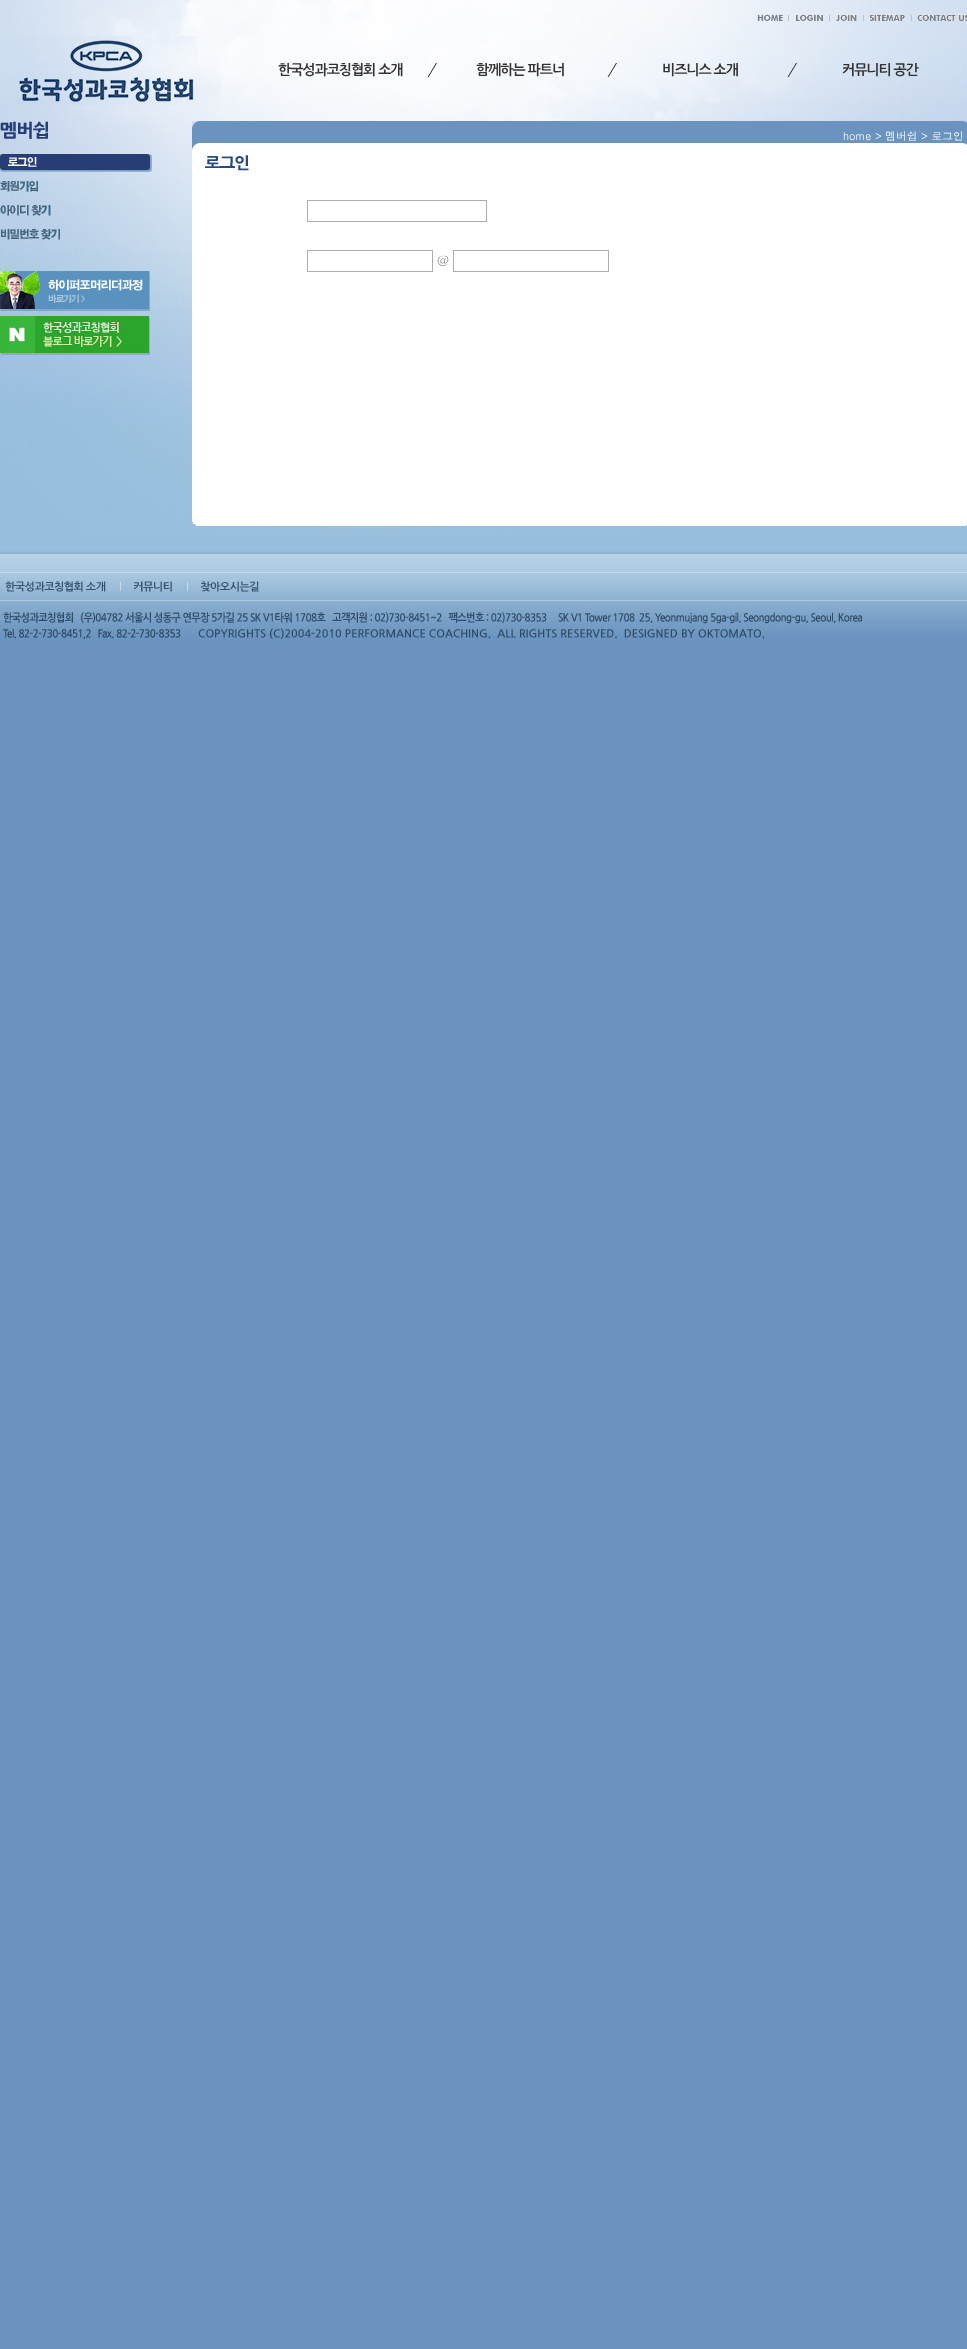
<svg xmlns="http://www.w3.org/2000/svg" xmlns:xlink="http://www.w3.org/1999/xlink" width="967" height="2349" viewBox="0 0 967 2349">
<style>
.cls-1{font:bold 14px NanumGothic;letter-spacing:-1px;fill:#333333}
.cls-2{font:10.75px Dotum;fill:#ffffff}
.cls-3{font:12px Dotum;fill:#686868}
</style>
<defs>
<clipPath id="clip1"><rect x="250" y="61" width="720" height="16"/></clipPath>
</defs>
<rect width="100%" height="100%" fill="#6a94bf"/>
<rect fill="#97bedd" x="0" y="536" width="967" height="14"/>
<image xlink:href="image0.png" x="0" y="0" width="967" height="536"/>
<image xlink:href="image1.png" x="757" y="14" width="32" height="7"/>
<image xlink:href="image2.png" x="796" y="14" width="34" height="7"/>
<image xlink:href="image3.png" x="836" y="14" width="28" height="7"/>
<image xlink:href="image4.png" x="869" y="14" width="43" height="7"/>
<image xlink:href="image5.png" x="917" y="14" width="50" height="7"/>
<image xlink:href="image6.png" x="0" y="36" width="229" height="69"/>
<g clip-path="url(#clip1)">
<path fill="#222222" d="M436 63H437L425 83H424Z"/>
<path fill="#222222" d="M616 63H617L605 83H604Z"/>
<path fill="#222222" d="M796 63H797L785 83H784Z"/>
</g>
<image xlink:href="image7.png" x="0" y="121" width="48" height="18"/>
<image xlink:href="image8.png" x="0" y="154" width="152" height="18"/>
<image xlink:href="image9.png" x="0" y="181" width="39" height="11"/>
<image xlink:href="image10.png" x="0" y="205" width="51" height="11"/>
<image xlink:href="image11.png" x="1" y="229" width="59" height="11"/>
<image xlink:href="image12.png" x="0" y="271" width="150" height="40"/>
<image xlink:href="image13.png" x="0" y="316" width="150" height="39"/>
<image xlink:href="image14.png" x="192" y="121" width="775" height="29"/>
<rect fill="#ffffff" x="192" y="150" width="775" height="368"/>
<image xlink:href="image15.png" x="205" y="155" width="44" height="16"/>
<rect fill="none" stroke="#adadad" x="307.5" y="200.5" width="179" height="21"/>
<rect fill="none" stroke="#adadad" x="307.5" y="250.5" width="125" height="21"/>
<rect fill="none" stroke="#adadad" x="453.5" y="250.5" width="155" height="21"/>
<image xlink:href="image16.png" x="192" y="518" width="775" height="8"/>
<image xlink:href="image17.png" x="0" y="550" width="967" height="20"/>
<image xlink:href="image18.png" x="0" y="570" width="967" height="76"/>
<text class="cls-1" x="278" y="74">한국성과코칭협회 소개</text>
<text class="cls-1" x="476" y="74">함께하는 파트너</text>
<text class="cls-1" x="662" y="74">비즈니스 소개</text>
<text class="cls-1" x="842" y="74">커뮤니티 공간</text>
<text class="cls-2" x="843" y="140">home &gt; 멤버쉽 &gt; 로그인</text>
<text class="cls-3" x="437" y="265">@</text>
</svg>
